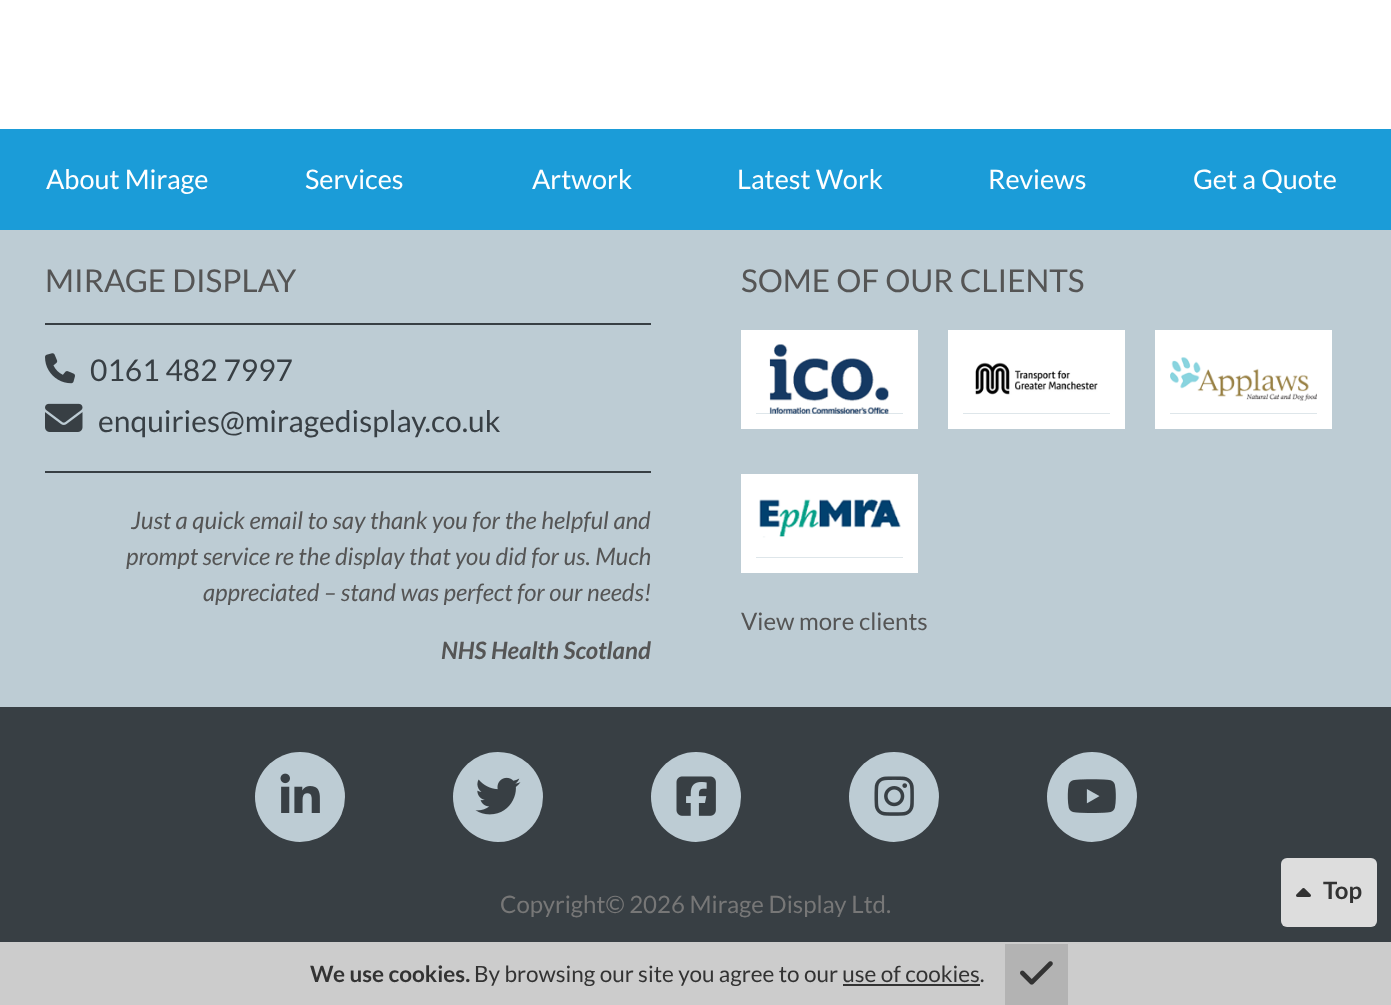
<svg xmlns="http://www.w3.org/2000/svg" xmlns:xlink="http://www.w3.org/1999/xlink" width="1391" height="1005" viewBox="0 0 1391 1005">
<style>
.cls-1{font:27px Lato;fill:#ffffff}
.cls-2{font:31.5px Lato;fill:#555555}
.cls-3{font:30px Lato;fill:#383f44}
.cls-4{font:italic 24px Lato;fill:#555555}
.cls-5{font:italic bold 24px Lato;fill:#555555}
.cls-6{font:24px Lato;fill:#555555}
.cls-7{font:24px Lato;fill:#777777}
.cls-8{font:bold 24px Lato;fill:#333333}
.cls-9{font:bold 22.5px Lato;fill:#333333}
.cls-10{font:22.5px Lato;fill:#333333}
</style>
<rect width="100%" height="100%" fill="#ffffff"/>
<rect fill="#1b9cd8" x="0" y="129" width="1391" height="101"/>
<rect fill="#bdccd4" x="0" y="230" width="1391" height="477"/>
<rect fill="#383f44" x="45" y="323" width="606" height="2"/>
<rect fill="#383f44" x="45" y="471" width="606" height="2"/>
<image xlink:href="image0.png" x="45" y="353" width="30" height="31"/>
<image xlink:href="image1.png" x="45" y="403" width="38" height="29"/>
<rect fill="none" stroke="#ffffff" stroke-width="15" x="748.5" y="337.5" width="162" height="84"/>
<image xlink:href="image2.png" x="756" y="344" width="147" height="70"/>
<rect fill="none" stroke="#ffffff" stroke-width="15" x="955.5" y="337.5" width="162" height="84"/>
<image xlink:href="image3.png" x="963" y="345" width="147" height="69"/>
<rect fill="none" stroke="#ffffff" stroke-width="15" x="1162.5" y="337.5" width="162" height="84"/>
<image xlink:href="image4.png" x="1170" y="345" width="147" height="69"/>
<rect fill="none" stroke="#ffffff" stroke-width="15" x="748.5" y="481.5" width="162" height="84"/>
<image xlink:href="image5.png" x="756" y="489" width="147" height="69"/>
<rect fill="#383f44" x="0" y="707" width="1391" height="235"/>
<circle fill="#bdccd4" cx="300" cy="797" r="45"/>
<image xlink:href="image6.png" x="280" y="773" width="40" height="40"/>
<circle fill="#bdccd4" cx="498" cy="797" r="45"/>
<image xlink:href="image7.png" x="475" y="777" width="46" height="38"/>
<circle fill="#bdccd4" cx="696" cy="797" r="45"/>
<image xlink:href="image8.png" x="676" y="776" width="40" height="40"/>
<circle fill="#bdccd4" cx="894" cy="797" r="45"/>
<image xlink:href="image9.png" x="874" y="776" width="40" height="40"/>
<circle fill="#bdccd4" cx="1092" cy="797" r="45"/>
<image xlink:href="image10.png" x="1067" y="779" width="49" height="34"/>
<rect fill="#dddddd" x="1281" y="858" width="96" height="69" rx="6"/>
<image xlink:href="image11.png" x="1296" y="888" width="15" height="9"/>
<rect fill="#cccccc" x="0" y="942" width="1391" height="63"/>
<rect fill="#333333" x="843" y="984" width="137" height="2"/>
<rect fill="#b3b3b3" x="1005" y="944" width="63" height="61"/>
<image xlink:href="image12.png" x="1020" y="961" width="33" height="24"/>
<text class="cls-1" x="46" y="189">About Mirage</text>
<text class="cls-1" x="305" y="189">Services</text>
<text class="cls-1" x="532" y="189">Artwork</text>
<text class="cls-1" x="737" y="189">Latest Work</text>
<text class="cls-1" x="988" y="189">Reviews</text>
<text class="cls-1" x="1193" y="189">Get a Quote</text>
<text class="cls-2" x="45" y="292">MIRAGE DISPLAY</text>
<text class="cls-3" x="90" y="381">0161 482 7997</text>
<text class="cls-3" x="98" y="432">enquiries@miragedisplay.co.uk</text>
<text class="cls-4" x="131" y="529">Just a quick email to say thank you for the helpful and</text>
<text class="cls-4" x="126" y="565">prompt service re the display that you did for us. Much</text>
<text class="cls-4" x="203" y="601">appreciated – stand was perfect for our needs!</text>
<text class="cls-5" x="441" y="659">NHS Health Scotland</text>
<text class="cls-2" x="741" y="292">SOME OF OUR CLIENTS</text>
<text class="cls-6" x="741" y="630">View more clients</text>
<text class="cls-7" x="500" y="913">Copyright© 2026 Mirage Display Ltd.</text>
<text class="cls-8" x="1323" y="899">Top</text>
<text class="cls-9" x="310" y="982">We use cookies.</text>
<text class="cls-10" x="474" y="982">By browsing our site you agree to our use of cookies.</text>
</svg>
